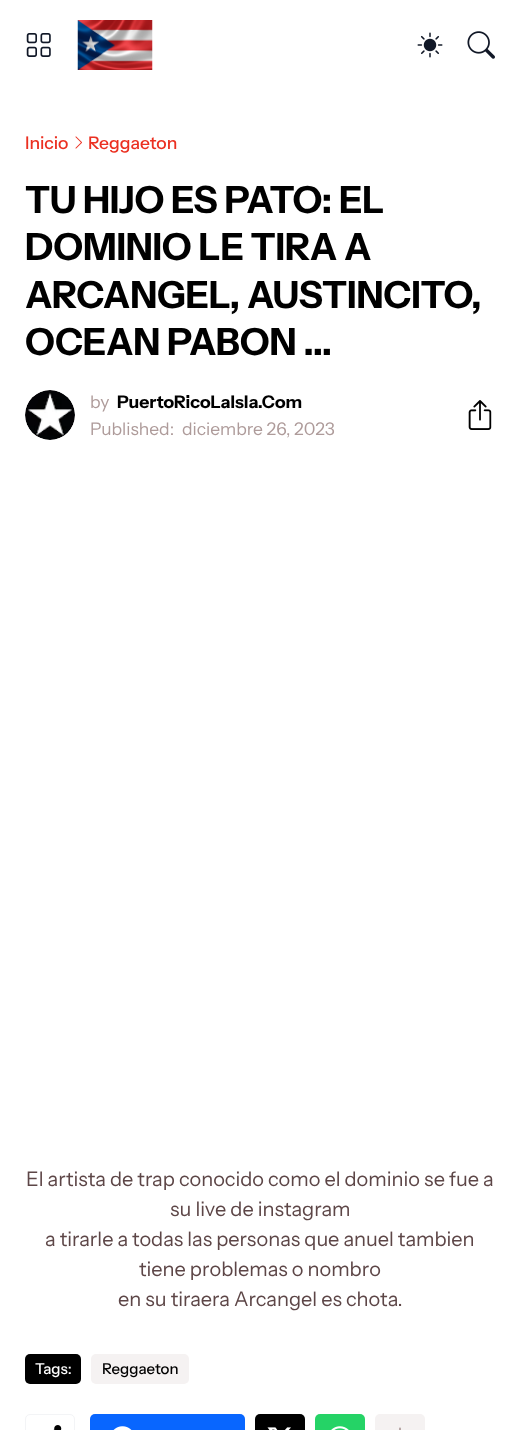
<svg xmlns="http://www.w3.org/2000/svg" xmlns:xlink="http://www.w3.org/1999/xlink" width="519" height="1430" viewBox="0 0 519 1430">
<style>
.cls-1{font:500 17.5px Instrument Sans;fill:#eb3021}
.cls-2{font:bold 37.5px Instrument Sans;letter-spacing:-0.2px;fill:#000000}
.cls-3{font:17.5px Instrument Sans;fill:#ae9b9a}
.cls-4{font:bold 17.5px Instrument Sans;fill:#000000}
.cls-5{font:20px Instrument Sans;fill:#5d4647}
.cls-6{font:500 15px Instrument Sans;fill:#ffffff}
.cls-7{font:500 15px Instrument Sans;fill:#000000}
</style>
<rect width="100%" height="100%" fill="#ffffff"/>
<image xlink:href="image0.png" x="26" y="33" width="25" height="24"/>
<image xlink:href="image1.png" x="77" y="20" width="76" height="50"/>
<image xlink:href="image2.png" x="417" y="32" width="26" height="26"/>
<image xlink:href="image3.png" x="467" y="31" width="28" height="28"/>
<image xlink:href="image4.png" x="75" y="136" width="7" height="13"/>
<circle fill="#f5f2f2" cx="50" cy="415" r="25"/>
<image xlink:href="image5.png" x="25" y="390" width="50" height="50"/>
<image xlink:href="image6.png" x="468" y="400" width="24" height="30"/>
<rect fill="#000000" x="25" y="1354" width="56" height="30" rx="5"/>
<rect fill="#f5f2f2" x="91" y="1354" width="98" height="30" rx="5"/>
<rect fill="none" stroke="#f3f4f6" x="25.5" y="1414.5" width="49" height="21" rx="4.5"/>
<image xlink:href="image7.png" x="53" y="1425" width="9" height="5"/>
<rect fill="#0866ff" x="90" y="1414" width="155" height="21" rx="5"/>
<image xlink:href="image8.png" x="113" y="1426" width="19" height="4"/>
<rect fill="#000000" x="255" y="1414" width="50" height="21" rx="5"/>
<image xlink:href="image9.png" x="267" y="1427" width="24" height="3"/>
<rect fill="#25d366" x="315" y="1414" width="50" height="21" rx="5"/>
<image xlink:href="image10.png" x="331" y="1426" width="18" height="4"/>
<rect fill="#f5f2f2" x="375" y="1414" width="50" height="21" rx="5"/>
<image xlink:href="image11.png" x="399" y="1427" width="2" height="3"/>
<text class="cls-1" x="25" y="149">Inicio</text>
<text class="cls-1" x="88" y="149">Reggaeton</text>
<text class="cls-2"><tspan x="25" y="213">TU HIJO ES PATO: EL</tspan><tspan x="25" y="260">DOMINIO LE TIRA A</tspan><tspan x="25" y="308">ARCANGEL, AUSTINCITO,</tspan><tspan x="25" y="355">OCEAN PABON ...</tspan></text>
<text class="cls-3" x="90" y="408">by</text>
<text class="cls-4" x="117" y="408">PuertoRicoLaIsla.Com</text>
<text class="cls-3" x="90" y="435">Published:</text>
<text class="cls-3" x="182" y="435">diciembre 26, 2023</text>
<text class="cls-5" x="26" y="1186">El artista de trap conocido como el dominio se fue a</text>
<text class="cls-5" x="170" y="1216">su live de instagram</text>
<text class="cls-5" x="45" y="1246">a tirarle a todas las personas que anuel tambien</text>
<text class="cls-5" x="139" y="1276">tiene problemas o nombro</text>
<text class="cls-5" x="118" y="1306">en su tiraera Arcangel es chota.</text>
<text class="cls-6" x="35" y="1374">Tags:</text>
<text class="cls-7" x="102" y="1374">Reggaeton</text>
</svg>
